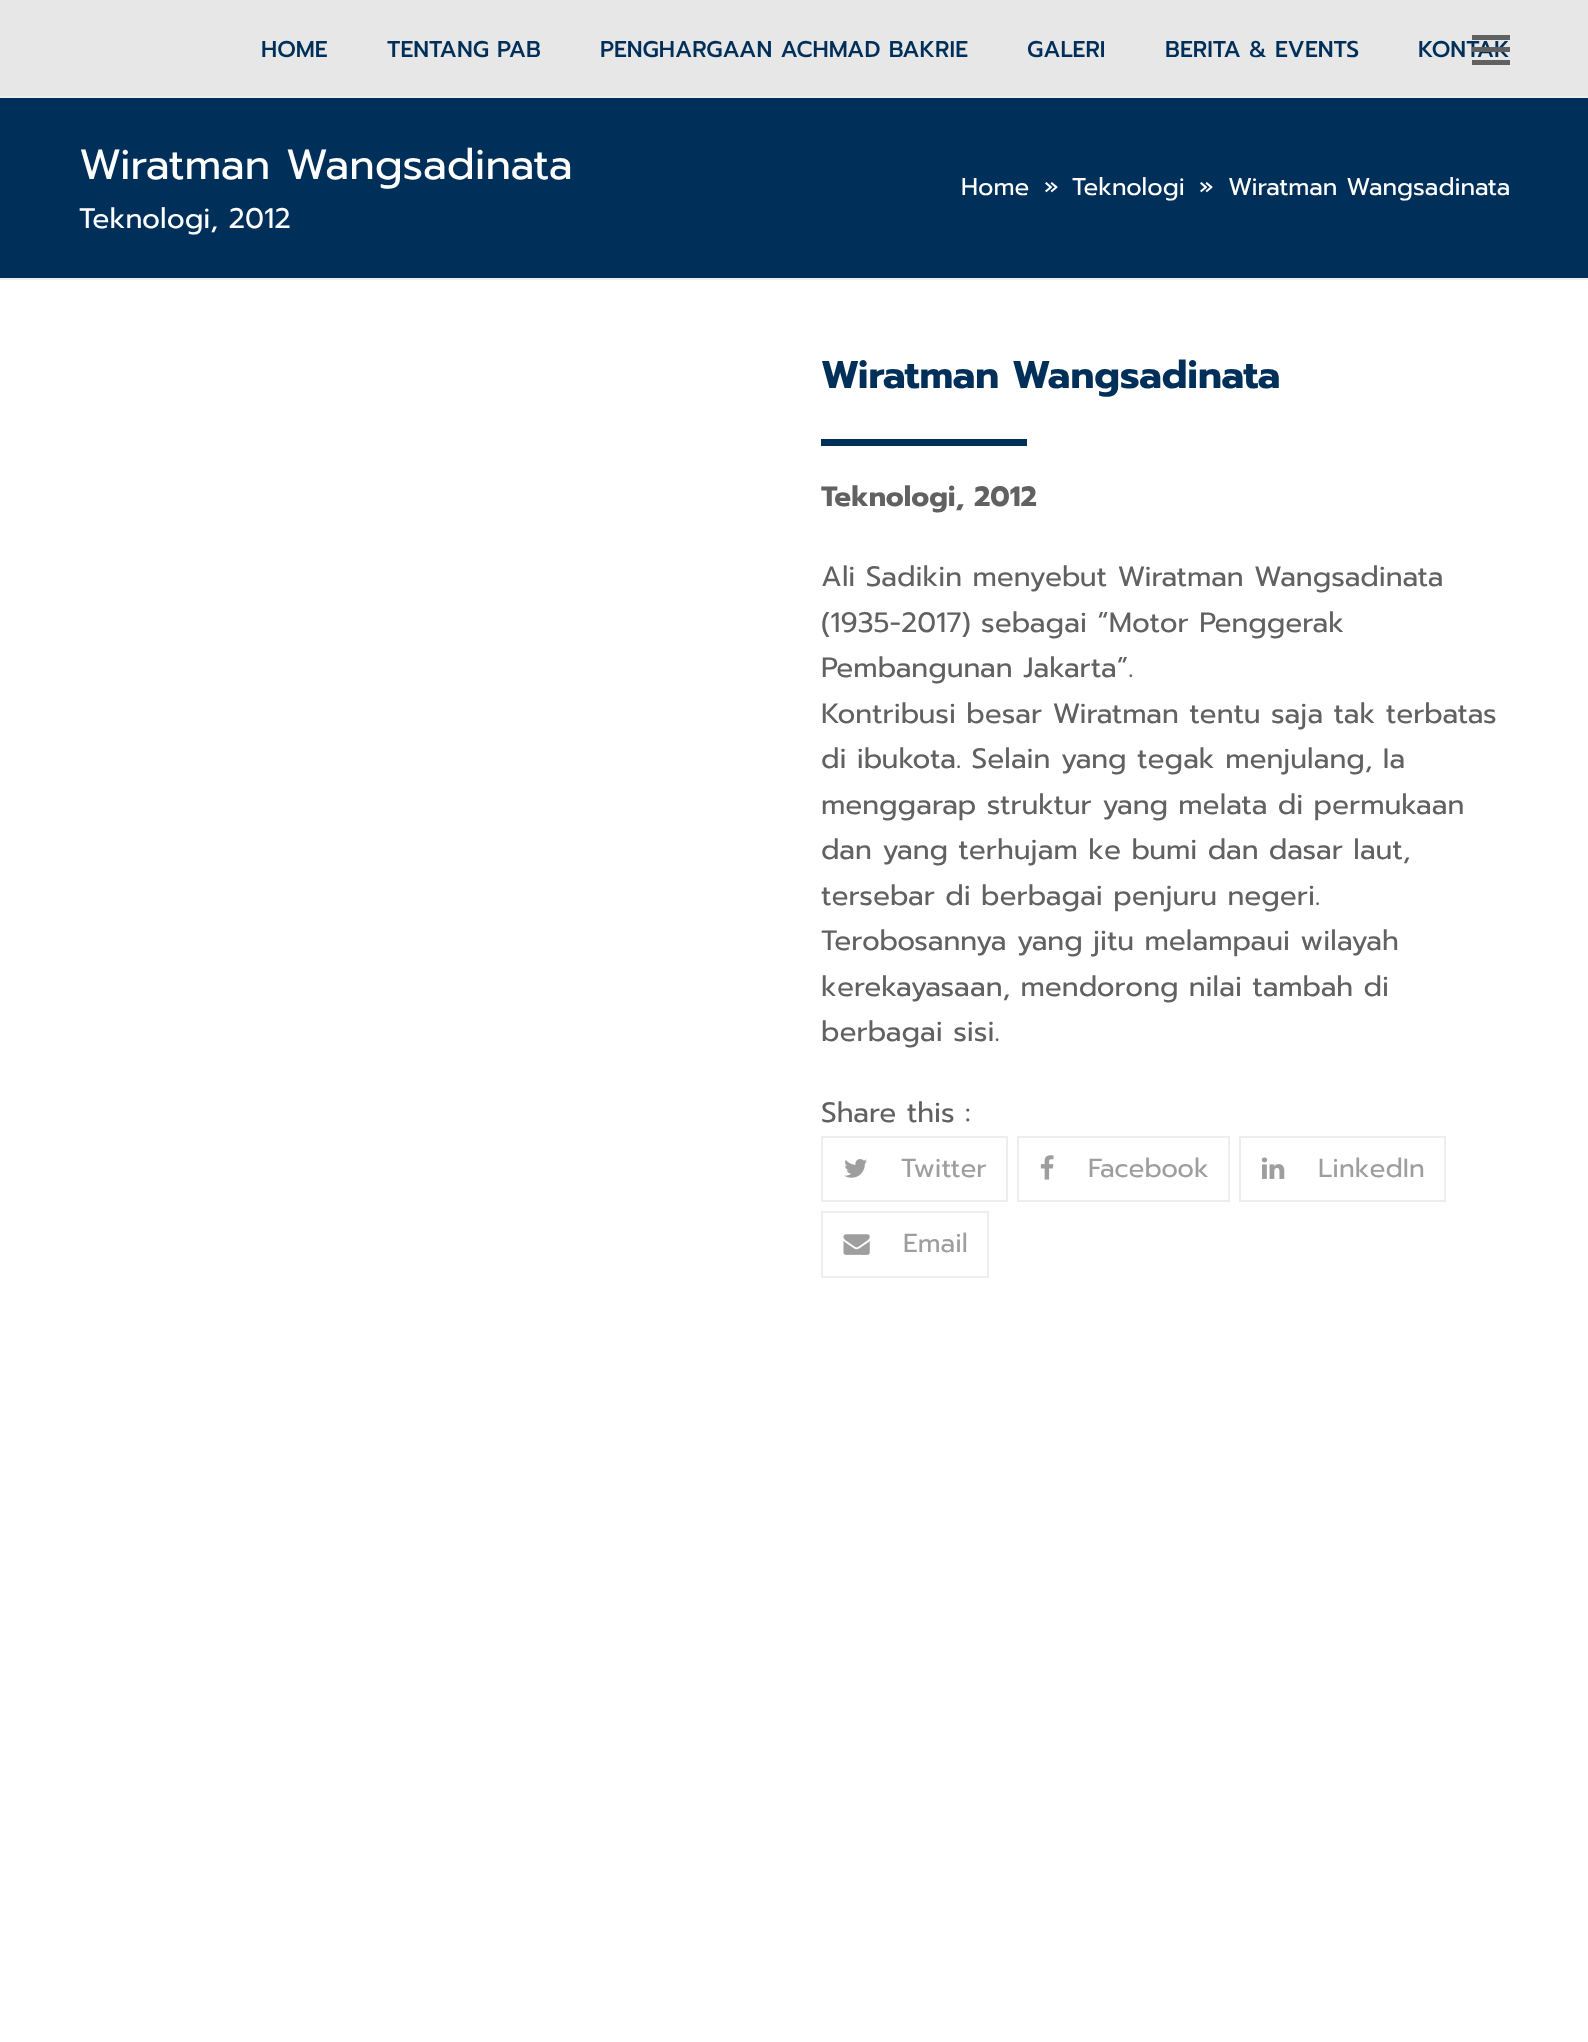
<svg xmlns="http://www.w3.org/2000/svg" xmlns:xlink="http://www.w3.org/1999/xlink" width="1588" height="2042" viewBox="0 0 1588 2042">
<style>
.cls-1{font:500 22.75px Prompt;fill:#003059}
.cls-2{font:42.4px Prompt;fill:#ffffff}
.cls-3{font:28.25px Prompt;fill:#ffffff}
.cls-4{font:24.25px Prompt;fill:#ffffff}
.cls-5{font:bold 38.5px Prompt;fill:#003059}
.cls-6{font:bold 28px Prompt;fill:#616161}
.cls-7{font:28px Prompt;fill:#616161}
.cls-8{font:26.25px Prompt;fill:#9e9e9e}
</style>
<rect width="100%" height="100%" fill="#ffffff"/>
<rect fill="#e7e7e7" x="0" y="0" width="1588" height="96"/>
<rect fill="#616161" x="1472" y="35" width="38" height="5"/>
<rect fill="#616161" x="1472" y="60" width="38" height="5"/>
<rect fill="#003059" x="0" y="98" width="1588" height="180"/>
<rect fill="#eeeeee" x="0" y="96" width="1588" height="2"/>
<rect fill="#eeeeee" x="0" y="278" width="1588" height="2"/>
<rect fill="#003059" x="821" y="439" width="206" height="7"/>
<rect fill="none" stroke="#eeeeee" stroke-width="2" x="822" y="1137" width="185" height="64"/>
<image xlink:href="image0.png" x="844" y="1159" width="23" height="19"/>
<rect fill="none" stroke="#eeeeee" stroke-width="2" x="1018" y="1137" width="211" height="64"/>
<image xlink:href="image1.png" x="1040" y="1155" width="14" height="25"/>
<rect fill="none" stroke="#eeeeee" stroke-width="2" x="1240" y="1137" width="205" height="64"/>
<image xlink:href="image2.png" x="1261" y="1157" width="24" height="22"/>
<rect fill="none" stroke="#eeeeee" stroke-width="2" x="822" y="1212" width="166" height="65"/>
<image xlink:href="image3.png" x="843" y="1234" width="27" height="21"/>
<text class="cls-1" x="261" y="57">HOME</text>
<text class="cls-1" x="387" y="57">TENTANG PAB</text>
<text class="cls-1" x="600" y="57">PENGHARGAAN ACHMAD BAKRIE</text>
<text class="cls-1" x="1027" y="57">GALERI</text>
<text class="cls-1" x="1165" y="57">BERITA &amp; EVENTS</text>
<text class="cls-1" x="1418" y="57">KONTAK</text>
<rect fill="#616161" x="1472" y="47" width="38" height="5"/>
<text class="cls-2" x="79" y="179">Wiratman Wangsadinata</text>
<text class="cls-3" x="79" y="228">Teknologi, 2012</text>
<text class="cls-4" x="961" y="195">Home</text>
<text class="cls-4" x="1044" y="195">»</text>
<text class="cls-4" x="1072" y="195">Teknologi</text>
<text class="cls-4" x="1199" y="195">»</text>
<text class="cls-4" x="1228" y="195">Wiratman Wangsadinata</text>
<text class="cls-5" x="821" y="388">Wiratman Wangsadinata</text>
<text class="cls-6" x="821" y="506">Teknologi, 2012</text>
<text class="cls-7"><tspan x="821" y="586">Ali Sadikin menyebut Wiratman Wangsadinata</tspan><tspan x="821" y="632">(1935-2017) sebagai “Motor Penggerak</tspan><tspan x="821" y="677">Pembangunan Jakarta”.</tspan><tspan x="821" y="723">Kontribusi besar Wiratman tentu saja tak terbatas</tspan><tspan x="821" y="768">di ibukota. Selain yang tegak menjulang, Ia</tspan><tspan x="821" y="814">menggarap struktur yang melata di permukaan</tspan><tspan x="821" y="859">dan yang terhujam ke bumi dan dasar laut,</tspan><tspan x="821" y="905">tersebar di berbagai penjuru negeri.</tspan><tspan x="821" y="950">Terobosannya yang jitu melampaui wilayah</tspan><tspan x="821" y="996">kerekayasaan, mendorong nilai tambah di</tspan><tspan x="821" y="1041">berbagai sisi.</tspan></text>
<text class="cls-7" x="821" y="1122">Share this :</text>
<text class="cls-8" x="901" y="1177">Twitter</text>
<text class="cls-8" x="1088" y="1177">Facebook</text>
<text class="cls-8" x="1318" y="1177">LinkedIn</text>
<text class="cls-8" x="903" y="1252">Email</text>
</svg>
